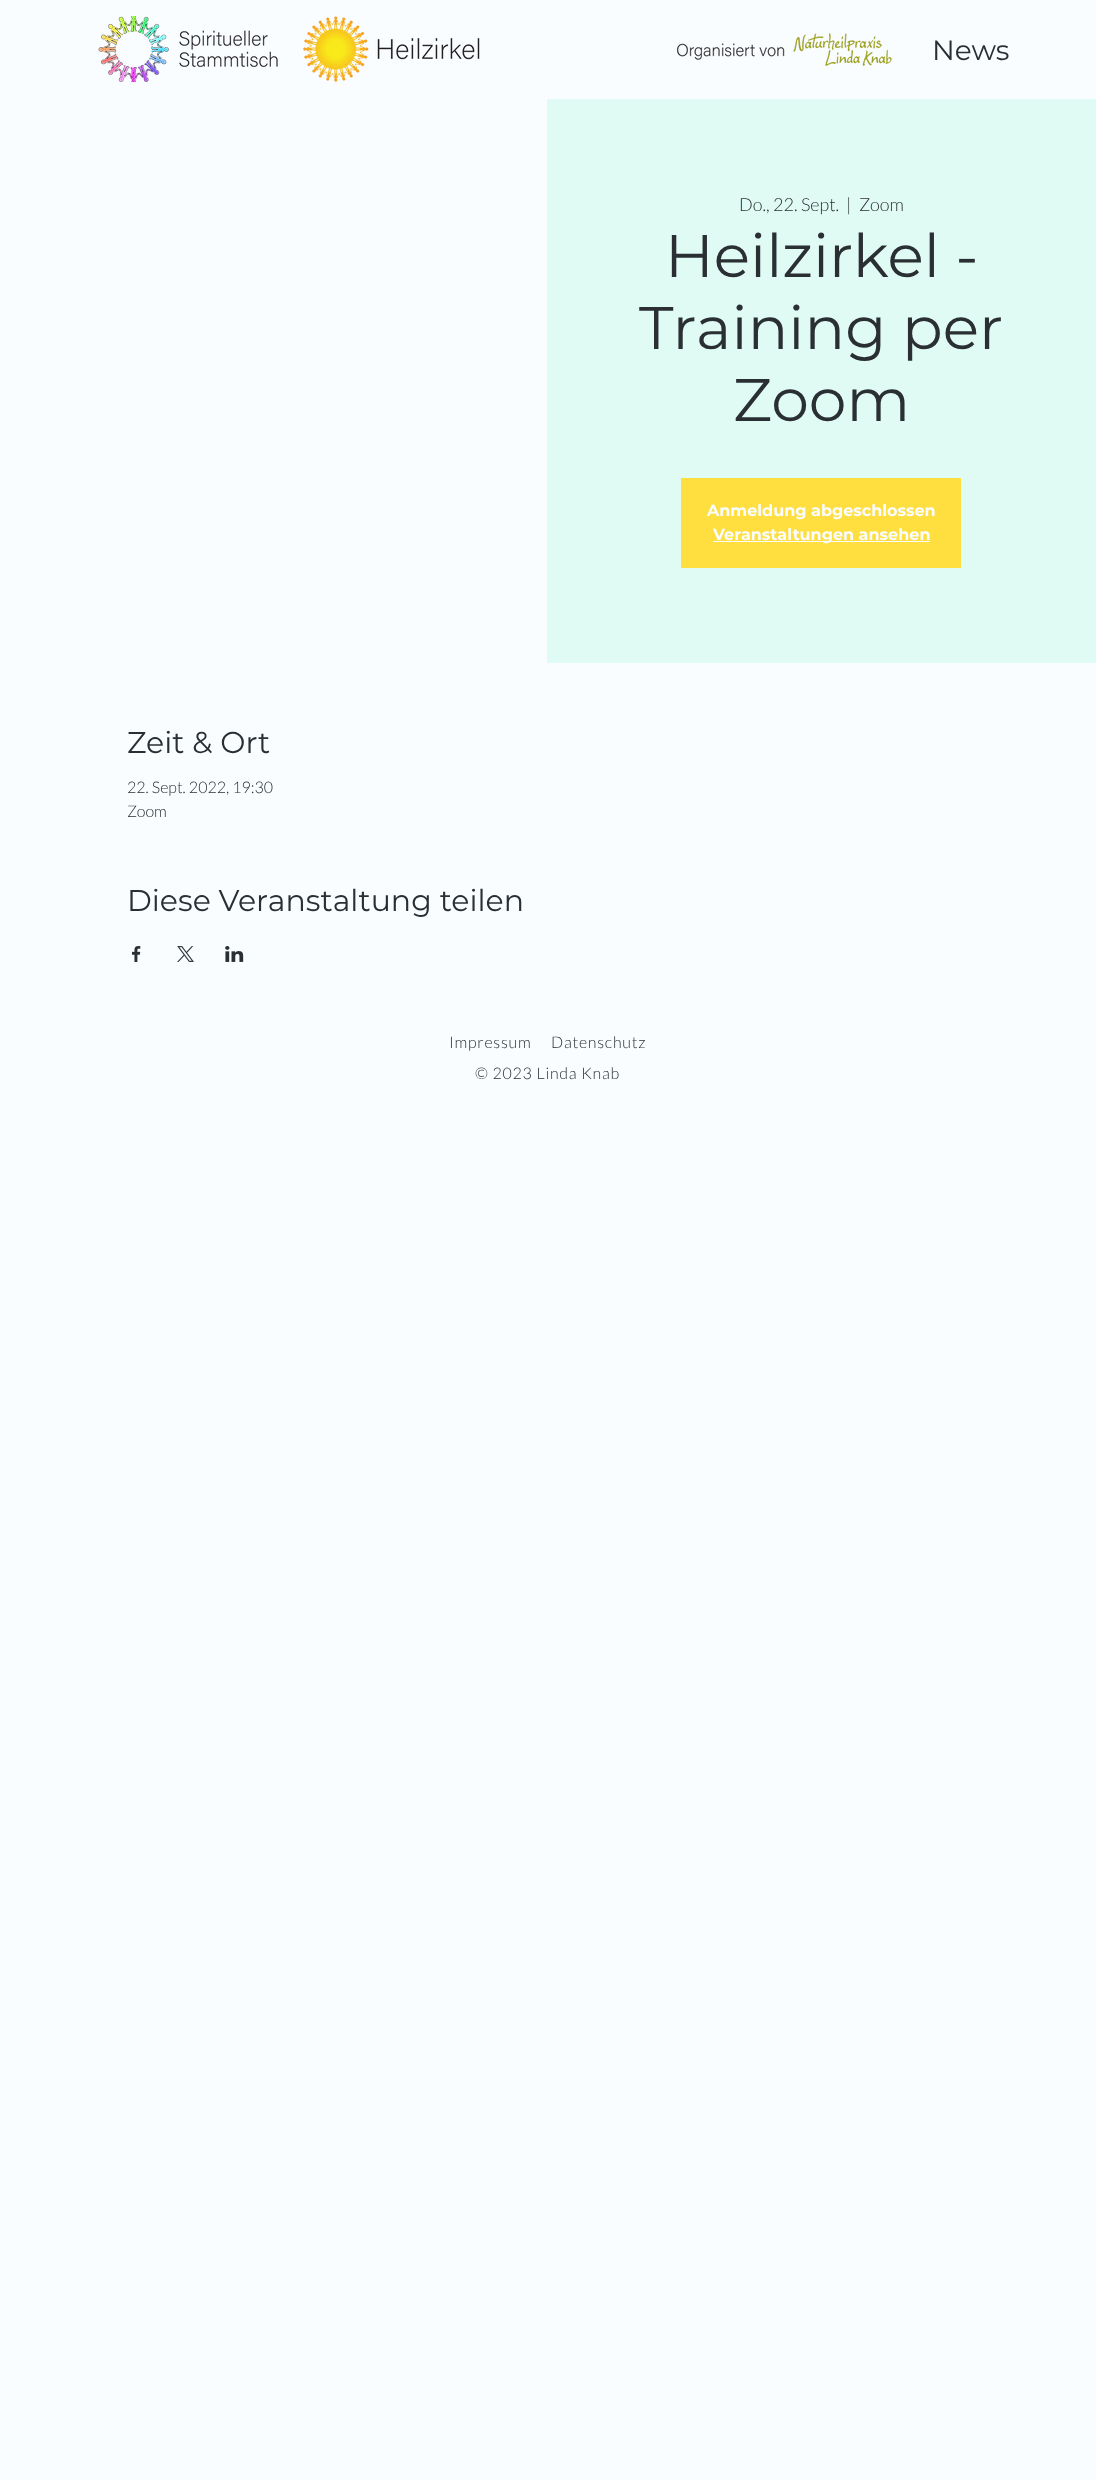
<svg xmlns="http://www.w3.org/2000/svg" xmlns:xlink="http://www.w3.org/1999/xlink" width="1096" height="2480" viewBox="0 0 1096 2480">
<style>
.cls-1{font:28px Montserrat;fill:#292f33}
.cls-2{font:300 18px Lato;fill:#292f33}
.cls-3{font:60px Montserrat;fill:#292f33}
.cls-4{font:bold 16px Montserrat;fill:#fafdff}
.cls-5{font:30px Montserrat;fill:#292f33}
.cls-6{font:300 16px Lato;fill:#292f33}
.cls-7{font:300 16px Lato;letter-spacing:0.75px;fill:#292f33}
</style>
<rect width="100%" height="100%" fill="#fafdff"/>
<image xlink:href="image0.png" x="98" y="16" width="180" height="66"/>
<image xlink:href="image1.png" x="303" y="16" width="177" height="66"/>
<image xlink:href="image2.png" x="677" y="33" width="215" height="33"/>
<rect fill="#e0faf4" x="547" y="99" width="549" height="564"/>
<rect fill="#ffdf40" x="681" y="478" width="280" height="90"/>
<rect fill="#fafdff" x="713" y="541" width="217" height="1"/>
<image xlink:href="image3.png" x="132" y="946" width="9" height="16"/>
<image xlink:href="image4.png" x="177" y="946" width="17" height="16"/>
<image xlink:href="image5.png" x="225" y="946" width="19" height="16"/>
<text class="cls-1" x="932" y="60">News</text>
<text class="cls-2" x="739" y="211">Do., 22. Sept.</text>
<text class="cls-2" x="846" y="211">|</text>
<text class="cls-2" x="859" y="211">Zoom</text>
<text class="cls-3" x="665" y="277">Heilzirkel -</text>
<text class="cls-3" x="639" y="349">Training per</text>
<text class="cls-3" x="733" y="421">Zoom</text>
<text class="cls-4" x="707" y="516">Anmeldung abgeschlossen</text>
<text class="cls-4" x="713" y="540">Veranstaltungen ansehen</text>
<text class="cls-5" x="127" y="753">Zeit &amp; Ort</text>
<text class="cls-6"><tspan x="127" y="793">22. Sept. 2022, 19:30</tspan><tspan x="127" y="817">Zoom</tspan></text>
<text class="cls-5" x="127" y="911">Diese Veranstaltung teilen</text>
<text class="cls-7" x="449" y="1048">Impressum</text>
<text class="cls-7" x="551" y="1048">Datenschutz</text>
<text class="cls-7" x="475" y="1079">© 2023 Linda Knab</text>
</svg>
